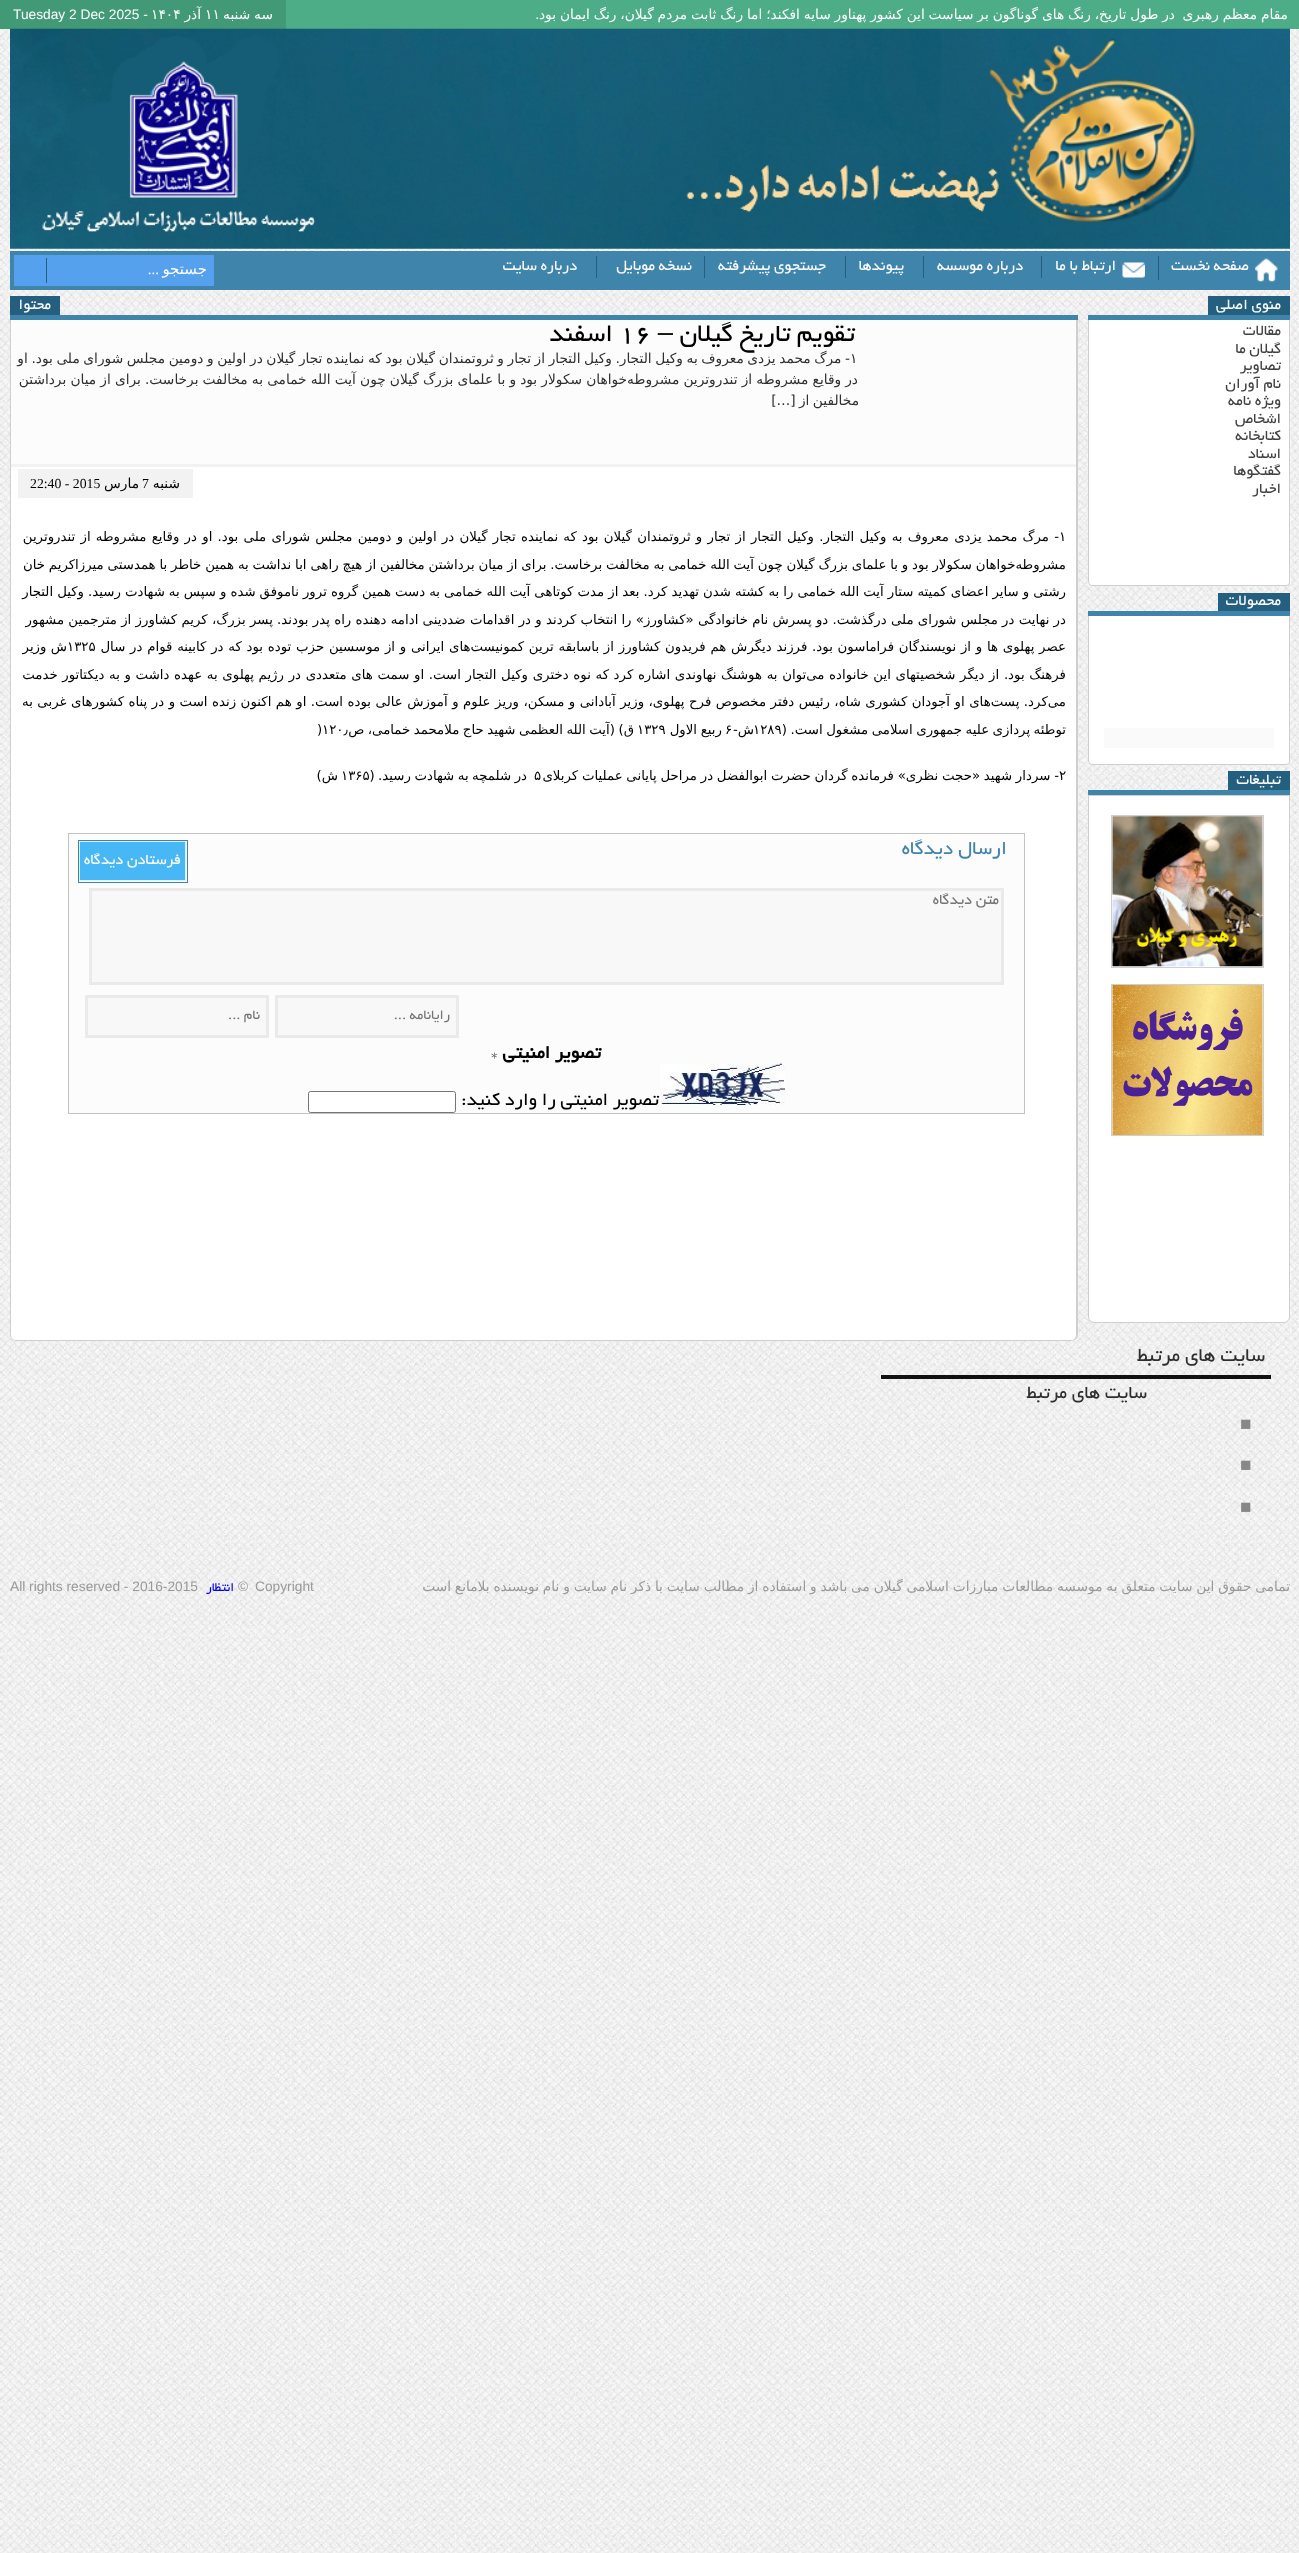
<svg xmlns="http://www.w3.org/2000/svg" xmlns:xlink="http://www.w3.org/1999/xlink" width="1299" height="2553" viewBox="0 0 1299 2553">
<style>
.cls-1{font:13.75px DejaVu Sans;direction:rtl;fill:#ffffff}
.cls-2{font:13.75px Liberation Sans;direction:rtl;fill:#ffffff}
.cls-3{font:13.75px DejaVu Sans;fill:#ffffff}
.cls-4{font:13.75px Liberation Sans;fill:#ffffff}
.cls-5{font:16.25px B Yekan;direction:rtl;fill:#ffffff}
.cls-6{font:15px DejaVu Sans;direction:rtl;fill:#ffffff}
.cls-7{font:15px Liberation Serif;direction:rtl;fill:#ffffff}
.cls-8{font:16.25px B Yekan;direction:rtl;fill:#414141}
.cls-9{font:27.5px B Yekan;direction:rtl;fill:#000000}
.cls-10{font:27.5px Liberation Sans;direction:rtl;fill:#000000}
.cls-11{font:27.5px B Yekan;fill:#000000}
.cls-12{font:13.75px DejaVu Sans;direction:rtl;fill:#2f2f2f}
.cls-13{font:13.75px DejaVu Sans;fill:#2f2f2f}
.cls-14{font:13.75px DejaVu Sans;direction:rtl;fill:#000000}
.cls-15{font:13.75px Liberation Serif;fill:#000000}
.cls-16{font:13.33px DejaVu Sans;fill:#000000}
.cls-17{font:13.33px DejaVu Sans;direction:rtl;fill:#000000}
.cls-18{font:21.25px B Yekan;direction:rtl;fill:#3f84ab}
.cls-19{font:16.25px B Yekan;direction:rtl;fill:#757575}
.cls-20{font:15px B Yekan;direction:rtl;fill:#757575}
.cls-21{font:bold 20px B Yekan;direction:rtl;fill:#000000}
.cls-22{font:20px B Yekan;fill:#000000}
.cls-23{font:20px B Yekan;direction:rtl;fill:#000000}
.cls-24{font:21.25px B Yekan;direction:rtl;fill:#2f2f2f}
.cls-25{font:20px B Yekan;direction:rtl;fill:#2f2f2f}
.cls-26{font:19px Liberation Serif;fill:#888888}
.cls-27{font:13.75px DejaVu Sans;direction:rtl;fill:#999999}
.cls-28{font:13.75px Liberation Sans;fill:#999999}
.cls-29{font:13.75px B Yekan;direction:rtl;fill:#0000ee}
</style>
<rect width="100%" height="100%" fill="#ffffff"/>
<image xlink:href="image0.png" x="0" y="29" width="1299" height="2524"/>
<rect fill="#4dad86" x="286" y="0" width="1013" height="29"/>
<rect fill="#419975" x="0" y="0" width="286" height="29"/>
<image xlink:href="image1.png" x="10" y="28" width="1280" height="221"/>
<rect fill="#3f84ab" x="10" y="251" width="1280" height="39"/>
<image xlink:href="image2.png" x="1255" y="258" width="23" height="24"/>
<rect fill="#245f80" x="1158" y="256" width="1" height="24"/>
<image xlink:href="image3.png" x="1122" y="262" width="23" height="16"/>
<rect fill="#245f80" x="1041" y="256" width="1" height="22"/>
<rect fill="#245f80" x="923" y="256" width="1" height="22"/>
<rect fill="#245f80" x="845" y="256" width="1" height="22"/>
<rect fill="#245f80" x="704" y="256" width="1" height="22"/>
<rect fill="#245f80" x="596" y="256" width="1" height="22"/>
<rect fill="#55a1ee" x="14" y="255" width="200" height="31"/>
<rect fill="#245f80" x="46" y="258" width="1" height="25"/>
<rect fill="#3f84ab" x="1088" y="315" width="202" height="5"/>
<rect fill="#245f80" x="1208" y="296" width="82" height="19"/>
<path fill="#ffffff" d="M1088 320H1290V582C1290 584 1288 586 1286 586H1093C1090 586 1088 584 1088 581Z"/>
<path fill="#cfcfcf" fill-rule="evenodd" d="M1088 320H1290V582C1290 585 1288 586 1286 586H1092C1090 586 1088 584 1088 581ZM1089 320H1289V582C1289 584 1288 585 1286 585H1092C1090 585 1089 583 1089 581Z"/>
<rect fill="#3f84ab" x="1088" y="611" width="202" height="5"/>
<rect fill="#245f80" x="1218" y="593" width="72" height="18"/>
<path fill="#ffffff" d="M1088 616H1290V761C1290 763 1288 765 1286 765H1093C1090 765 1088 763 1088 760Z"/>
<path fill="#cfcfcf" fill-rule="evenodd" d="M1088 616H1290V761C1290 763 1288 765 1286 765H1092C1090 765 1088 763 1088 760ZM1089 616H1289V761C1289 763 1288 764 1286 764H1092C1090 764 1089 762 1089 760Z"/>
<rect fill="#fafafa" x="1104" y="728" width="170" height="20"/>
<rect fill="#3f84ab" x="1088" y="790" width="202" height="5"/>
<rect fill="#245f80" x="1228" y="771" width="62" height="19"/>
<path fill="#ffffff" stroke="#cfcfcf" d="M1088.5 795.5H1289.5V1317C1289.5 1320 1287 1322.5 1284 1322.5H1094C1091 1322.5 1088.5 1320 1088.5 1317Z"/>
<rect fill="none" stroke="#cfcfcf" x="1111.5" y="815.5" width="152" height="152"/>
<image xlink:href="image4.png" x="1112" y="816" width="151" height="151"/>
<rect fill="none" stroke="#cfcfcf" x="1111.5" y="984.5" width="152" height="151"/>
<image xlink:href="image5.png" x="1112" y="985" width="151" height="150"/>
<rect fill="#3f84ab" x="10" y="315" width="1068" height="5"/>
<rect fill="#245f80" x="10" y="296" width="50" height="19"/>
<path fill="#ffffff" d="M10 320H1078V1335C1078 1338.5 1075.5 1341 1072 1341H16C12.5 1341 10 1338.5 10 1335Z"/>
<path fill="#cfcfcf" fill-rule="evenodd" d="M10 320H1078V1335C1078 1338 1075 1341 1071 1341H16C13 1341 10 1338 10 1335ZM11 320H1076V1335C1076 1338 1074 1340 1071 1340H16C13 1340 11 1338 11 1335Z"/>
<rect fill="#fcfcfc" x="11" y="320" width="1065" height="144"/>
<rect fill="#f2f2f2" x="11" y="464" width="1065" height="3"/>
<rect fill="#f2f2f2" x="18" y="469" width="175" height="29"/>
<rect fill="#fcfcfc" stroke="#c3c3c3" x="68.5" y="833.5" width="956" height="280"/>
<rect fill="none" stroke="#3f84ab" x="78.5" y="840.5" width="109" height="42"/>
<rect fill="#48b7f6" stroke="#dcf2ff" x="79.5" y="841.5" width="106" height="39"/>
<rect fill="#f8f8f8" stroke="#eaeaea" stroke-width="3" x="90.5" y="889.5" width="912" height="94"/>
<rect fill="#f8f8f8" stroke="#eaeaea" stroke-width="3" x="276.5" y="996.5" width="181" height="40"/>
<rect fill="#f8f8f8" stroke="#eaeaea" stroke-width="3" x="86.5" y="996.5" width="181" height="40"/>
<image xlink:href="image6.png" x="660" y="1063" width="125" height="42"/>
<rect fill="#ffffff" stroke="#767676" x="308.5" y="1091.5" width="147" height="21" rx="2"/>
<rect fill="#111111" x="881" y="1375" width="390" height="4"/>
<text class="cls-1" x="1288" y="19" word-spacing="-0.5">مقام معظم رهبری</text>
<text class="cls-1" x="1175" y="19" word-spacing="-0.5">در طول تاریخ، رنگ های گوناگون بر سیاست این کشور پهناور سایه افکند؛ اما رنگ ثابت مردم گیلان، رنگ ایمان بود</text>
<text class="cls-2" x="539" y="19">.</text>
<text class="cls-1" x="273" y="19" word-spacing="-0.55">سه شنبه</text>
<text class="cls-3" x="205" y="19">۱۱</text>
<text class="cls-1" x="201" y="19">آذر</text>
<text class="cls-3" x="151" y="19">۱۴۰۴</text>
<text class="cls-4" x="13" y="19">Tuesday 2 Dec 2025 -</text>
<text class="cls-5" x="1249" y="270">صفحه نخست</text>
<text class="cls-5" x="1116" y="270">ارتباط با ما</text>
<text class="cls-5" x="1023" y="270">درباره موسسه</text>
<text class="cls-5" x="904" y="270">پیوندها</text>
<text class="cls-5" x="826" y="270">جستجوی پیشرفته</text>
<text class="cls-5" x="692" y="270">نسخه موبایل</text>
<text class="cls-5" x="577" y="270">درباره سایت</text>
<text class="cls-6" x="207" y="274">جستجو</text>
<text class="cls-7" x="159" y="274">...</text>
<text class="cls-5" x="1281" y="309">منوی اصلی</text>
<text class="cls-8"><tspan x="1281" y="335">مقالات</tspan><tspan x="1281" y="353">گیلان ما</tspan><tspan x="1281" y="370">تصاویر</tspan><tspan x="1281" y="388">نام آوران</tspan><tspan x="1281" y="405">ویژه نامه</tspan><tspan x="1281" y="423">اشخاص</tspan><tspan x="1281" y="440">کتابخانه</tspan><tspan x="1281" y="458">اسناد</tspan><tspan x="1281" y="475">گفتگوها</tspan><tspan x="1281" y="493">اخبار</tspan></text>
<text class="cls-5" x="1281" y="605">محصولات</text>
<text class="cls-5" x="1281" y="784">تبلیغات</text>
<text class="cls-5" x="51" y="309">محتوا</text>
<text class="cls-9" x="855" y="341">تقویم تاریخ گیلان</text>
<text class="cls-10" x="673" y="341">–</text>
<text class="cls-11" x="619" y="341">۱۶</text>
<text class="cls-9" x="613" y="341">اسفند</text>
<text class="cls-12" x="850" y="363" word-spacing="-0.8">- مرگ محمد یزدی معروف به وکیل التجار. وکیل التجار از تجار و ثروتمندان گیلان بود که نماینده تجار گیلان در اولین و دومین مجلس شورای ملی بود. او</text>
<text class="cls-13" x="850" y="363">۱</text>
<text class="cls-12" x="858" y="384" word-spacing="-0.25">در وقایع مشروطه از تندروترین مشروطه‌خواهان سکولار بود و با علمای بزرگ گیلان چون آیت الله خمامی به مخالفت برخاست. برای از میان برداشتن</text>
<text class="cls-12" x="859" y="405" word-spacing="-1">مخالفین‌ از […]</text>
<text class="cls-14" x="180" y="488">شنبه</text>
<text class="cls-15" x="142" y="488">7</text>
<text class="cls-14" x="139" y="488">مارس</text>
<text class="cls-15" x="30" y="488">22:40 - 2015</text>
<text class="cls-16" x="1059" y="541">۱</text>
<text class="cls-17" x="1059" y="541" word-spacing="1">- مرگ محمد یزدی معروف به وکیل التجار. وکیل التجار از تجار و ثروتمندان گیلان بود که نماینده تجار گیلان در اولین و دومین مجلس شورای ملی بود. او در وقایع مشروطه از تندروترین</text>
<text class="cls-17" x="1066" y="569" word-spacing="-0.4">مشروطه‌خواهان سکولار بود و با علمای بزرگ گیلان چون آیت الله خمامی به مخالفت برخاست. برای از میان برداشتن مخالفین‌ از هیچ راهی ابا نداشت به همین خاطر با همدستی میرزاکریم خان</text>
<text class="cls-17" x="1066" y="596" word-spacing="-0.2">رشتی و سایر اعضای کمیته ستار آیت الله خمامی را به کشته شدن تهدید کرد. بعد از مدت کوتاهی آیت الله خمامی به دست همین گروه ترور ناموفق شده و سپس به شهادت رسید. وکیل التجار</text>
<text class="cls-17" x="1066" y="624">در نهایت در مجلس شورای ملی درگذشت. دو پسرش نام خانوادگی «کشاورز» را انتخاب کردند و در اقدامات ضددینی ادامه دهنده راه پدر بودند. پسر بزرگ، کریم کشاورز از مترجمین مشهور</text>
<text class="cls-17" x="1066" y="651" word-spacing="0.5">عصر پهلوی ها و از نویسندگان فراماسون بود. فرزند دیگرش هم فریدون کشاورز از باسابقه ترین کمونیست‌های ایرانی و از موسسین حزب توده بود که در کابینه قوام در سال</text>
<text class="cls-16" x="67" y="651">۱۳۲۵</text>
<text class="cls-17" x="67" y="651">ش وزیر</text>
<text class="cls-17" x="1066" y="679" word-spacing="0.4">فرهنگ بود. از دیگر شخصیتهای این خانواده می‌توان به هوشنگ نهاوندی اشاره کرد که نوه دختری وکیل التجار است. او سمت های متعددی در رژیم پهلوی به عهده داشت و به دیکتاتور خدمت</text>
<text class="cls-17" x="1066" y="706" word-spacing="0.25">می‌کرد. پست‌های او آجودان کشوری شاه، رئیس دفتر مخصوص فرح پهلوی، وزیر آبادانی و مسکن، وریز علوم و آموزش عالی بوده است. او هم اکنون زنده است و در پناه کشورهای غربی به</text>
<text class="cls-17" x="1066" y="734" word-spacing="-0.75">توطئه پردازی علیه جمهوری اسلامی مشغول است. (</text>
<text class="cls-16" x="753" y="734">۱۲۸۹</text>
<text class="cls-17" x="754" y="734">ش-</text>
<text class="cls-16" x="725" y="734">۶</text>
<text class="cls-17" x="722" y="734" word-spacing="-0.55">ربیع الاول</text>
<text class="cls-17" x="634" y="734" word-spacing="-0.75">ق) (آیت الله العظمی شهید حاج ملامحمد خمامی، ص</text>
<text class="cls-16" x="637" y="734">۱۳۲۹</text>
<text class="cls-16" x="322" y="734">۱۲۰٫</text>
<text class="cls-16" x="317" y="734">)</text>
<text class="cls-17" x="1059" y="780" word-spacing="-0.5">- سردار شهید «حجت نظری‌» فرمانده گردان حضرت ابوالفضل در مراحل پایانی عملیات کربلای‌</text>
<text class="cls-16" x="534" y="780">۵</text>
<text class="cls-17" x="527" y="780" word-spacing="-0.75">در شلمچه به شهادت رسید. (</text>
<text class="cls-16" x="341" y="780">۱۳۶۵</text>
<text class="cls-17" x="338" y="780">ش)</text>
<text class="cls-16" x="1059" y="780">۲</text>
<text class="cls-18" x="1007" y="854">ارسال دیدگاه</text>
<text class="cls-5" x="181" y="864">فرستادن دیدگاه</text>
<text class="cls-19" x="999" y="904">متن دیدگاه</text>
<text class="cls-20" x="450" y="1019">رایانامه ...</text>
<text class="cls-20" x="260" y="1019">نام ...</text>
<text class="cls-21" x="601" y="1058">تصویر امنیتی</text>
<text class="cls-22" x="491" y="1058">*</text>
<text class="cls-23" x="659" y="1105">تصویر امنیتی را وارد کنید:</text>
<text class="cls-24" x="1265" y="1361">سایت های مرتبط</text>
<text class="cls-25" x="1147" y="1398">سایت های مرتبط</text>
<text class="cls-26" x="1240" y="1430">■</text>
<text class="cls-26" x="1240" y="1471">■</text>
<text class="cls-26" x="1240" y="1513">■</text>
<text class="cls-27" x="1290" y="1591" word-spacing="-0.55">تمامی حقوق این سایت متعلق به موسسه مطالعات مبارزات اسلامی گیلان می باشد و استفاده از مطالب سایت با ذکر نام سایت و نام نویسنده بلامانع است</text>
<text class="cls-28" x="255" y="1591">Copyright</text>
<text class="cls-28" x="238" y="1591">©</text>
<text class="cls-29" x="234" y="1591">انتظار</text>
<text class="cls-28" x="10" y="1591">All rights reserved - 2016-2015</text>
</svg>
